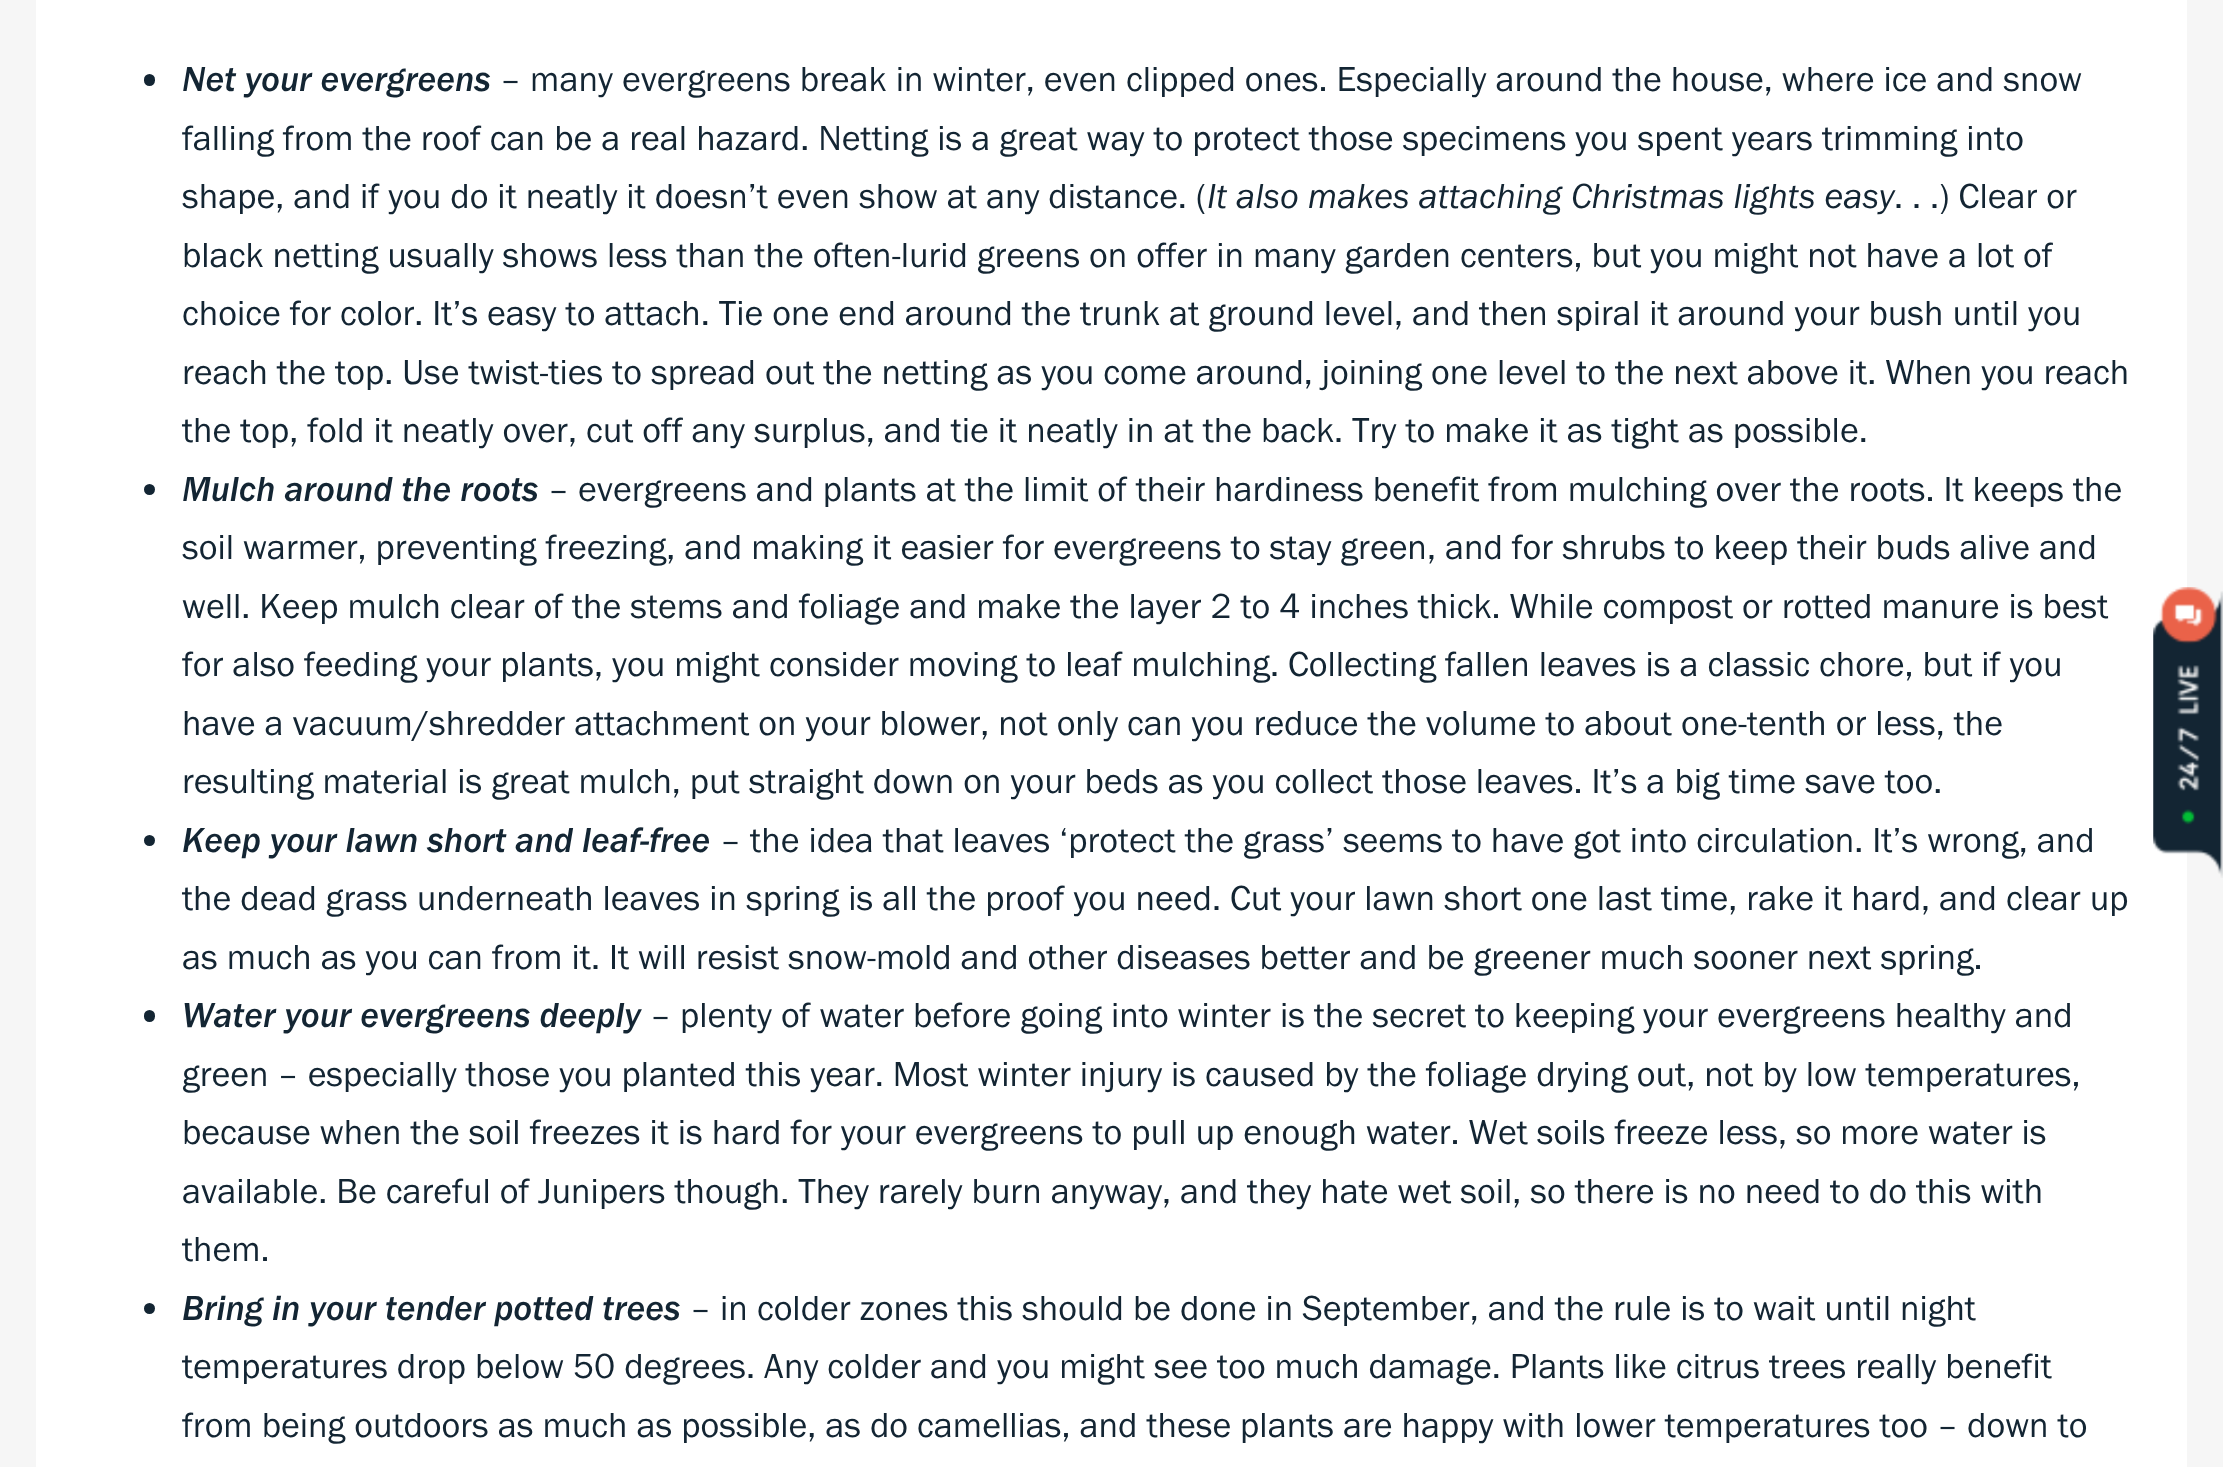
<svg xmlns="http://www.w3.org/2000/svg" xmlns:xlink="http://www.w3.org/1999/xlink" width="2223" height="1467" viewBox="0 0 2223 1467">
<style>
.cls-1{font:italic 36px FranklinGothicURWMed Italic;fill:#132533}
.cls-2{font:36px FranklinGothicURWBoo;fill:#132533}
.cls-3{font:italic 36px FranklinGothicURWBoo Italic;fill:#132533}
</style>
<rect width="100%" height="100%" fill="#f6f6f6"/>
<rect fill="#ffffff" x="36" y="0" width="2151" height="1467"/>
<rect fill="#132533" x="144" y="74" width="11" height="12" rx="5.5"/>
<circle fill="#132533" cx="149.5" cy="489.5" r="5.5"/>
<circle fill="#132533" cx="149.5" cy="840.5" r="5.5"/>
<rect fill="#132533" x="144" y="1010" width="11" height="12" rx="5.5"/>
<circle fill="#132533" cx="149.5" cy="1308.5" r="5.5"/>
<image xlink:href="image0.png" x="2153" y="587" width="70" height="291"/>
<text class="cls-1" x="182" y="91">Net your evergreens</text>
<text class="cls-2" x="500" y="91">– many evergreens break in winter, even clipped ones. Especially around the house, where ice and snow</text>
<text class="cls-2"><tspan x="182" y="150">falling from the roof can be a real hazard. Netting is a great way to protect those specimens you spent years trimming into</tspan><tspan x="182" y="208">shape, and if you do it neatly it doesn’t even show at any distance. (</tspan></text>
<text class="cls-3" x="1207" y="208">It also makes attaching Christmas lights easy</text>
<text class="cls-2" x="1894" y="208">. . .) Clear or</text>
<text class="cls-2"><tspan x="182" y="267">black netting usually shows less than the often-lurid greens on offer in many garden centers, but you might not have a lot of</tspan><tspan x="182" y="325">choice for color. It’s easy to attach. Tie one end around the trunk at ground level, and then spiral it around your bush until you</tspan><tspan x="182" y="384">reach the top. Use twist-ties to spread out the netting as you come around, joining one level to the next above it. When you reach</tspan><tspan x="182" y="442">the top, fold it neatly over, cut off any surplus, and tie it neatly in at the back. Try to make it as tight as possible.</tspan></text>
<text class="cls-1" x="182" y="501">Mulch around the roots</text>
<text class="cls-2" x="548" y="501">– evergreens and plants at the limit of their hardiness benefit from mulching over the roots. It keeps the</text>
<text class="cls-2"><tspan x="182" y="559">soil warmer, preventing freezing, and making it easier for evergreens to stay green, and for shrubs to keep their buds alive and</tspan><tspan x="182" y="618">well. Keep mulch clear of the stems and foliage and make the layer 2 to 4 inches thick. While compost or rotted manure is best</tspan><tspan x="182" y="676">for also feeding your plants, you might consider moving to leaf mulching. Collecting fallen leaves is a classic chore, but if you</tspan><tspan x="182" y="735">have a vacuum/shredder attachment on your blower, not only can you reduce the volume to about one-tenth or less, the</tspan><tspan x="182" y="793">resulting material is great mulch, put straight down on your beds as you collect those leaves. It’s a big time save too.</tspan></text>
<text class="cls-1" x="182" y="852">Keep your lawn short and leaf-free</text>
<text class="cls-2" x="720" y="852">– the idea that leaves ‘protect the grass’ seems to have got into circulation. It’s wrong, and</text>
<text class="cls-2"><tspan x="182" y="910">the dead grass underneath leaves in spring is all the proof you need. Cut your lawn short one last time, rake it hard, and clear up</tspan><tspan x="182" y="969">as much as you can from it. It will resist snow-mold and other diseases better and be greener much sooner next spring.</tspan></text>
<text class="cls-1" x="182" y="1027">Water your evergreens deeply</text>
<text class="cls-2" x="650" y="1027">– plenty of water before going into winter is the secret to keeping your evergreens healthy and</text>
<text class="cls-2"><tspan x="182" y="1086">green – especially those you planted this year. Most winter injury is caused by the foliage drying out, not by low temperatures,</tspan><tspan x="182" y="1144">because when the soil freezes it is hard for your evergreens to pull up enough water. Wet soils freeze less, so more water is</tspan><tspan x="182" y="1203">available. Be careful of Junipers though. They rarely burn anyway, and they hate wet soil, so there is no need to do this with</tspan><tspan x="182" y="1261">them.</tspan></text>
<text class="cls-1" x="182" y="1320">Bring in your tender potted trees</text>
<text class="cls-2" x="690" y="1320">– in colder zones this should be done in September, and the rule is to wait until night</text>
<text class="cls-2"><tspan x="182" y="1378">temperatures drop below 50 degrees. Any colder and you might see too much damage. Plants like citrus trees really benefit</tspan><tspan x="182" y="1437">from being outdoors as much as possible, as do camellias, and these plants are happy with lower temperatures too – down to</tspan></text>
</svg>
